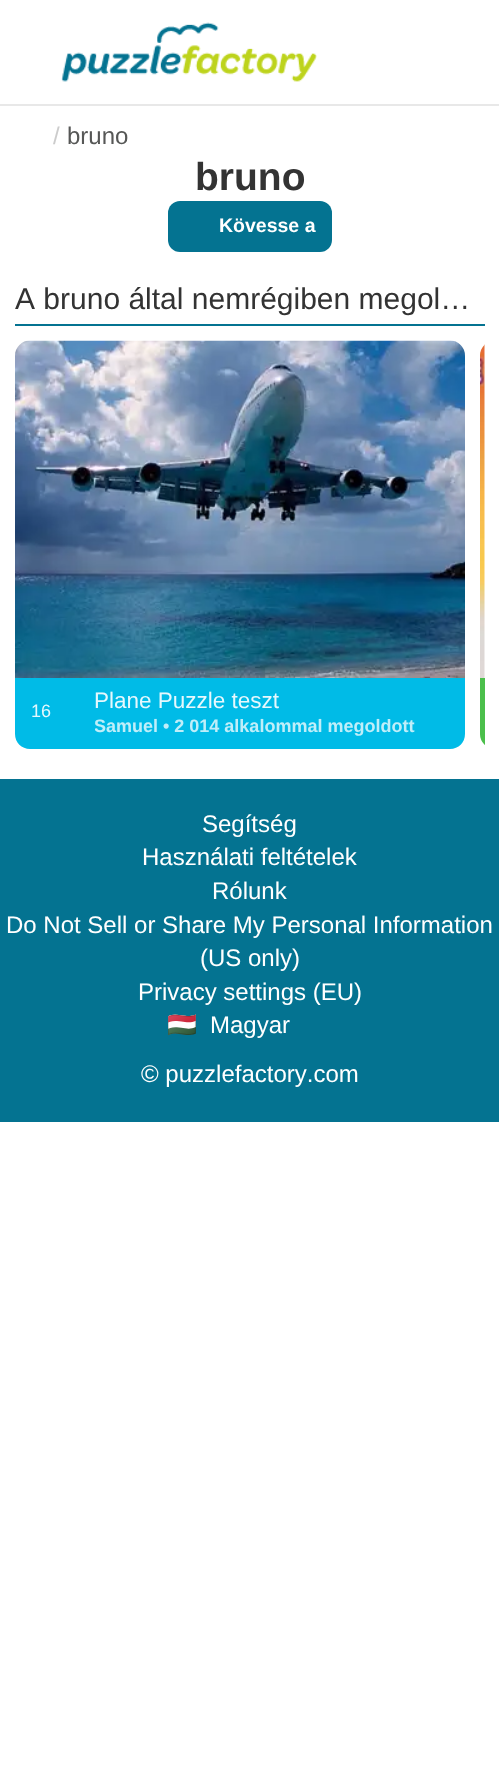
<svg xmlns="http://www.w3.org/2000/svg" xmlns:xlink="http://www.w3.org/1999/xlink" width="499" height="1791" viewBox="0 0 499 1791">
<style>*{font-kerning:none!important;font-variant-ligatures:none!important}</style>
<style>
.cls-1{font:24px Liberation Sans;fill:#cccccc}
.cls-2{font:24px Liberation Sans;fill:#565756}
.cls-3{font:bold 39px Liberation Sans;fill:#333333}
.cls-4{font:bold 19.5px Liberation Sans;fill:#ffffff}
.cls-5{font:30px Liberation Sans;fill:#333333}
.cls-6{font:22.5px Liberation Sans;fill:#e6f8fd}
.cls-7{font:18px Liberation Sans;fill:#e6f8fd}
.cls-8{font:bold 18px Liberation Sans;fill:#bfeef9}
.cls-9{font:24px Liberation Sans;fill:#ffffff}
.cls-10{font:24px Noto Color Emoji;fill:#ffffff}
</style>
<defs>
<clipPath id="clip1"><rect x="480" y="341" width="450" height="408" rx="15"/></clipPath>
<clipPath id="clip2"><rect x="95" y="714" width="63" height="26"/></clipPath>
<clipPath id="clip3"><rect x="167" y="1010" width="166" height="33"/></clipPath>
</defs>
<rect width="100%" height="100%" fill="#ffffff"/>
<rect fill="#e8e8e8" x="0" y="104" width="499" height="2"/>
<image xlink:href="image0.png" x="61" y="22" width="256" height="60"/>
<rect fill="#047391" x="168" y="201" width="164" height="51" rx="12"/>
<rect fill="#047391" x="15" y="324" width="470" height="2"/>
<image xlink:href="image1.png" x="15" y="340" width="450" height="338"/>
<path fill="#00bbe7" d="M15 678H465V734C465 742.5 458.5 749 450 749H30C21.5 749 15 742.5 15 734Z"/>
<image xlink:href="image2.png" x="480" y="344" width="5" height="334"/>
<g clip-path="url(#clip1)">
<rect fill="#4bbf4b" x="480" y="678" width="5" height="71"/>
</g>
<rect fill="#047391" x="0" y="779" width="499" height="343"/>
<text class="cls-1" x="53" y="144">/</text>
<text class="cls-2" x="67" y="144">bruno</text>
<text class="cls-3" x="195" y="190">bruno</text>
<text class="cls-4" x="219" y="232">Kövesse a</text>
<text class="cls-5" x="15" y="309">A bruno által nemrégiben megol…</text>
<text class="cls-6" x="94" y="708">Plane Puzzle teszt</text>
<text class="cls-7" x="31" y="717">16</text>
<g clip-path="url(#clip2)">
<text class="cls-8" x="94" y="732">Samuel</text>
</g>
<text class="cls-8" x="163" y="732">• 2 014 alkalommal megoldott</text>
<text class="cls-9" x="202" y="832">Segítség</text>
<text class="cls-9" x="142" y="865">Használati feltételek</text>
<text class="cls-9" x="212" y="899">Rólunk</text>
<text class="cls-9" x="6" y="933">Do Not Sell or Share My Personal Information</text>
<text class="cls-9" x="200" y="966">(US only)</text>
<text class="cls-9" x="138" y="1000">Privacy settings (EU)</text>
<g clip-path="url(#clip3)">
<text class="cls-10" x="167" y="1033">🇭🇺</text>
</g>
<text class="cls-9" x="210" y="1033">Magyar</text>
<text class="cls-9" x="141" y="1082">© puzzlefactory.com</text>
</svg>
